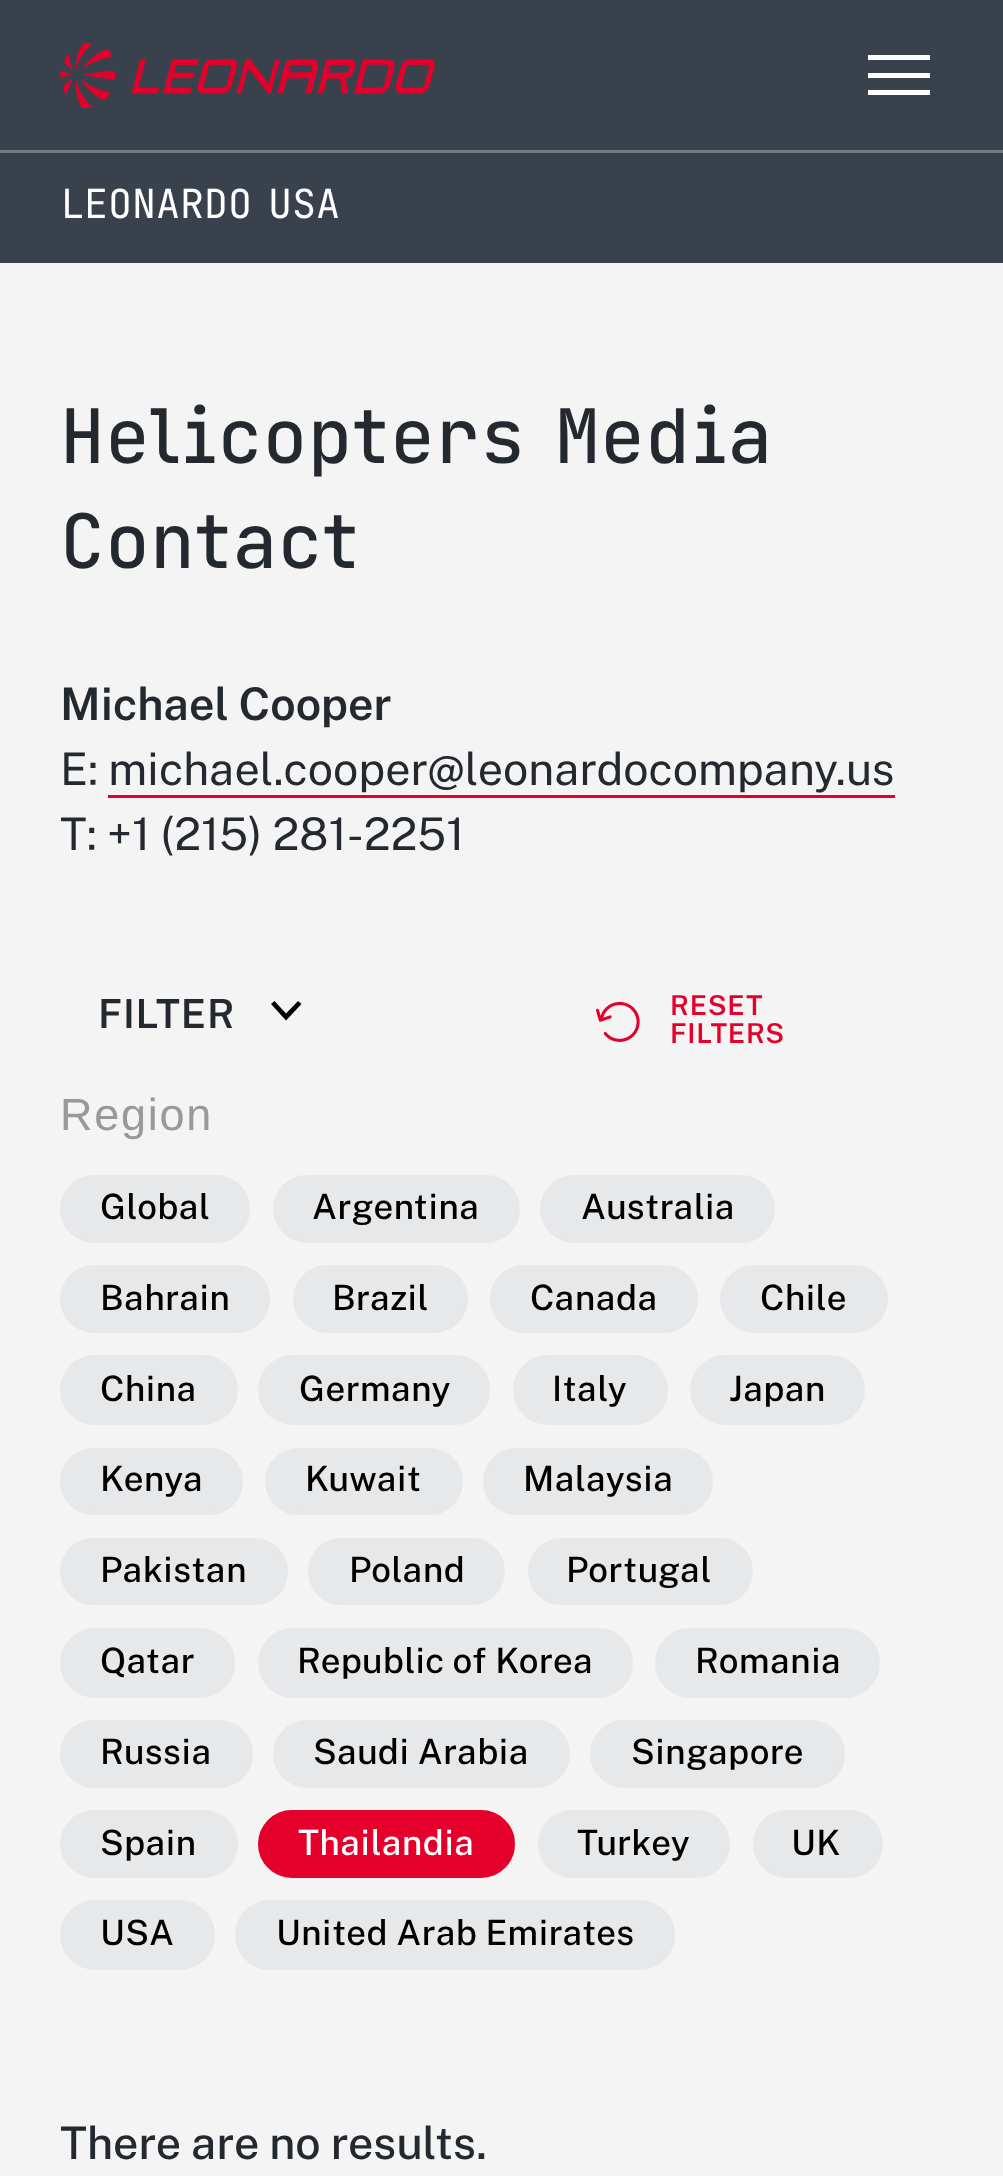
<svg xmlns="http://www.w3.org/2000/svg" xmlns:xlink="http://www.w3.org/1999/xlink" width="1003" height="2176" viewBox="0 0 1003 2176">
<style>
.cls-1{font:40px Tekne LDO;fill:#ffffff}
.cls-2{font:500 75px Tekne LDO;fill:#24292f}
.cls-3{font:100 45px Public Sans;fill:#24292f}
.cls-4{font:100 45px 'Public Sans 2';fill:#24292f}
.cls-5{font:100 40px Public Sans;letter-spacing:0.75px;fill:#24292f}
.cls-6{font:100 27.5px Public Sans;letter-spacing:0.75px;fill:#e4002b}
.cls-7{font:45px Liberation Sans;letter-spacing:1.75px;fill:#999999}
.cls-8{font:100 35px 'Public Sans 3';letter-spacing:0.5px;fill:#000000}
.cls-9{font:100 35px 'Public Sans 3';letter-spacing:0.5px;fill:#ffffff}
.cls-10{font:100 45px 'Public Sans 3';fill:#24292f}
</style>
<rect width="100%" height="100%" fill="#39414c"/>
<image xlink:href="image0.png" x="60" y="43" width="375" height="65"/>
<rect fill="#ffffff" x="868" y="55" width="62" height="5"/>
<rect fill="#ffffff" x="868" y="73" width="62" height="5"/>
<rect fill="#ffffff" x="868" y="90" width="62" height="5"/>
<rect fill="#747a82" x="0" y="150" width="1003" height="3"/>
<rect fill="#f4f4f4" x="0" y="263" width="1003" height="1913"/>
<rect fill="#e4002b" x="108" y="795" width="787" height="3"/>
<path fill="#000000" fill-rule="evenodd" d="M298 1001L301.5 1004L286 1020.5L271 1004L274.5 1001L286 1013.5Z"/>
<image xlink:href="image1.png" x="596" y="1001" width="44" height="41"/>
<rect fill="#e7e8ea" stroke="#e7e8ea" stroke-width="3" x="61.5" y="1176.5" width="187" height="65" rx="32.5"/>
<rect fill="#e7e8ea" stroke="#e7e8ea" stroke-width="3" x="274.5" y="1176.5" width="244" height="65" rx="32.5"/>
<rect fill="#e7e8ea" stroke="#e7e8ea" stroke-width="3" x="541.5" y="1176.5" width="232" height="65" rx="32.5"/>
<rect fill="#e7e8ea" stroke="#e7e8ea" stroke-width="3" x="61.5" y="1266.5" width="207" height="65" rx="32.5"/>
<rect fill="#e7e8ea" stroke="#e7e8ea" stroke-width="3" x="294.5" y="1266.5" width="172" height="65" rx="32.5"/>
<rect fill="#e7e8ea" stroke="#e7e8ea" stroke-width="3" x="491.5" y="1266.5" width="205" height="65" rx="32.5"/>
<rect fill="#e7e8ea" stroke="#e7e8ea" stroke-width="3" x="721.5" y="1266.5" width="165" height="65" rx="32.5"/>
<rect fill="#e7e8ea" stroke="#e7e8ea" stroke-width="3" x="61.5" y="1356.5" width="175" height="67" rx="33.5"/>
<rect fill="#e7e8ea" stroke="#e7e8ea" stroke-width="3" x="259.5" y="1356.5" width="229" height="67" rx="33.5"/>
<rect fill="#e7e8ea" stroke="#e7e8ea" stroke-width="3" x="514.5" y="1356.5" width="152" height="67" rx="33.5"/>
<rect fill="#e7e8ea" stroke="#e7e8ea" stroke-width="3" x="691.5" y="1356.5" width="172" height="67" rx="33.5"/>
<rect fill="#e7e8ea" stroke="#e7e8ea" stroke-width="3" x="61.5" y="1449.5" width="180" height="64" rx="32"/>
<rect fill="#e7e8ea" stroke="#e7e8ea" stroke-width="3" x="266.5" y="1449.5" width="195" height="64" rx="32"/>
<rect fill="#e7e8ea" stroke="#e7e8ea" stroke-width="3" x="484.5" y="1449.5" width="227" height="64" rx="32"/>
<rect fill="#e7e8ea" stroke="#e7e8ea" stroke-width="3" x="61.5" y="1539.5" width="225" height="64" rx="32"/>
<rect fill="#e7e8ea" stroke="#e7e8ea" stroke-width="3" x="309.5" y="1539.5" width="194" height="64" rx="32"/>
<rect fill="#e7e8ea" stroke="#e7e8ea" stroke-width="3" x="529.5" y="1539.5" width="222" height="64" rx="32"/>
<rect fill="#e7e8ea" stroke="#e7e8ea" stroke-width="3" x="61.5" y="1629.5" width="172" height="67" rx="33.5"/>
<rect fill="#e7e8ea" stroke="#e7e8ea" stroke-width="3" x="259.5" y="1629.5" width="372" height="67" rx="33.5"/>
<rect fill="#e7e8ea" stroke="#e7e8ea" stroke-width="3" x="656.5" y="1629.5" width="222" height="67" rx="33.5"/>
<rect fill="#e7e8ea" stroke="#e7e8ea" stroke-width="3" x="61.5" y="1721.5" width="190" height="65" rx="32.5"/>
<rect fill="#e7e8ea" stroke="#e7e8ea" stroke-width="3" x="274.5" y="1721.5" width="294" height="65" rx="32.5"/>
<rect fill="#e7e8ea" stroke="#e7e8ea" stroke-width="3" x="591.5" y="1721.5" width="252" height="65" rx="32.5"/>
<rect fill="#e7e8ea" stroke="#e7e8ea" stroke-width="3" x="61.5" y="1811.5" width="175" height="65" rx="32.5"/>
<rect fill="#e4002b" stroke="#e4002b" stroke-width="3" x="259.5" y="1811.5" width="254" height="65" rx="32.5"/>
<rect fill="#e7e8ea" stroke="#e7e8ea" stroke-width="3" x="539.5" y="1811.5" width="189" height="65" rx="32.5"/>
<rect fill="#e7e8ea" stroke="#e7e8ea" stroke-width="3" x="754.5" y="1811.5" width="127" height="65" rx="32.5"/>
<rect fill="#e7e8ea" stroke="#e7e8ea" stroke-width="3" x="61.5" y="1901.5" width="152" height="67" rx="33.5"/>
<rect fill="#e7e8ea" stroke="#e7e8ea" stroke-width="3" x="236.5" y="1901.5" width="437" height="67" rx="33.5"/>
<text class="cls-1" x="60" y="218">LEONARDO USA</text>
<text class="cls-2"><tspan x="60" y="463">Helicopters Media</tspan><tspan x="60" y="568">Contact</tspan></text>
<text class="cls-3" x="60" y="720">Michael Cooper</text>
<text class="cls-4"><tspan x="60" y="785">E: michael.cooper@leonardocompany.us</tspan><tspan x="60" y="850">T: +1 (215) 281-2251</tspan></text>
<text class="cls-5" x="98" y="1028">FILTER</text>
<text class="cls-6"><tspan x="670" y="1015">RESET</tspan><tspan x="670" y="1043">FILTERS</tspan></text>
<text class="cls-7" x="60" y="1130">Region</text>
<text class="cls-8" x="100" y="1219">Global</text>
<text class="cls-8" x="312" y="1219">Argentina</text>
<text class="cls-8" x="581" y="1219">Australia</text>
<text class="cls-8" x="100" y="1310">Bahrain</text>
<text class="cls-8" x="332" y="1310">Brazil</text>
<text class="cls-8" x="530" y="1310">Canada</text>
<text class="cls-8" x="760" y="1310">Chile</text>
<text class="cls-8" x="100" y="1401">China</text>
<text class="cls-8" x="299" y="1401">Germany</text>
<text class="cls-8" x="552" y="1401">Italy</text>
<text class="cls-8" x="729" y="1401">Japan</text>
<text class="cls-8" x="100" y="1491">Kenya</text>
<text class="cls-8" x="305" y="1491">Kuwait</text>
<text class="cls-8" x="523" y="1491">Malaysia</text>
<text class="cls-8" x="100" y="1582">Pakistan</text>
<text class="cls-8" x="349" y="1582">Poland</text>
<text class="cls-8" x="566" y="1582">Portugal</text>
<text class="cls-8" x="100" y="1673">Qatar</text>
<text class="cls-8" x="297" y="1673">Republic of Korea</text>
<text class="cls-8" x="695" y="1673">Romania</text>
<text class="cls-8" x="100" y="1764">Russia</text>
<text class="cls-8" x="313" y="1764">Saudi Arabia</text>
<text class="cls-8" x="631" y="1764">Singapore</text>
<text class="cls-8" x="100" y="1855">Spain</text>
<text class="cls-9" x="298" y="1855">Thailandia</text>
<text class="cls-8" x="577" y="1855">Turkey</text>
<text class="cls-8" x="791" y="1855">UK</text>
<text class="cls-8" x="100" y="1945">USA</text>
<text class="cls-8" x="276" y="1945">United Arab Emirates</text>
<text class="cls-10" x="60" y="2159">There are no results.</text>
</svg>
